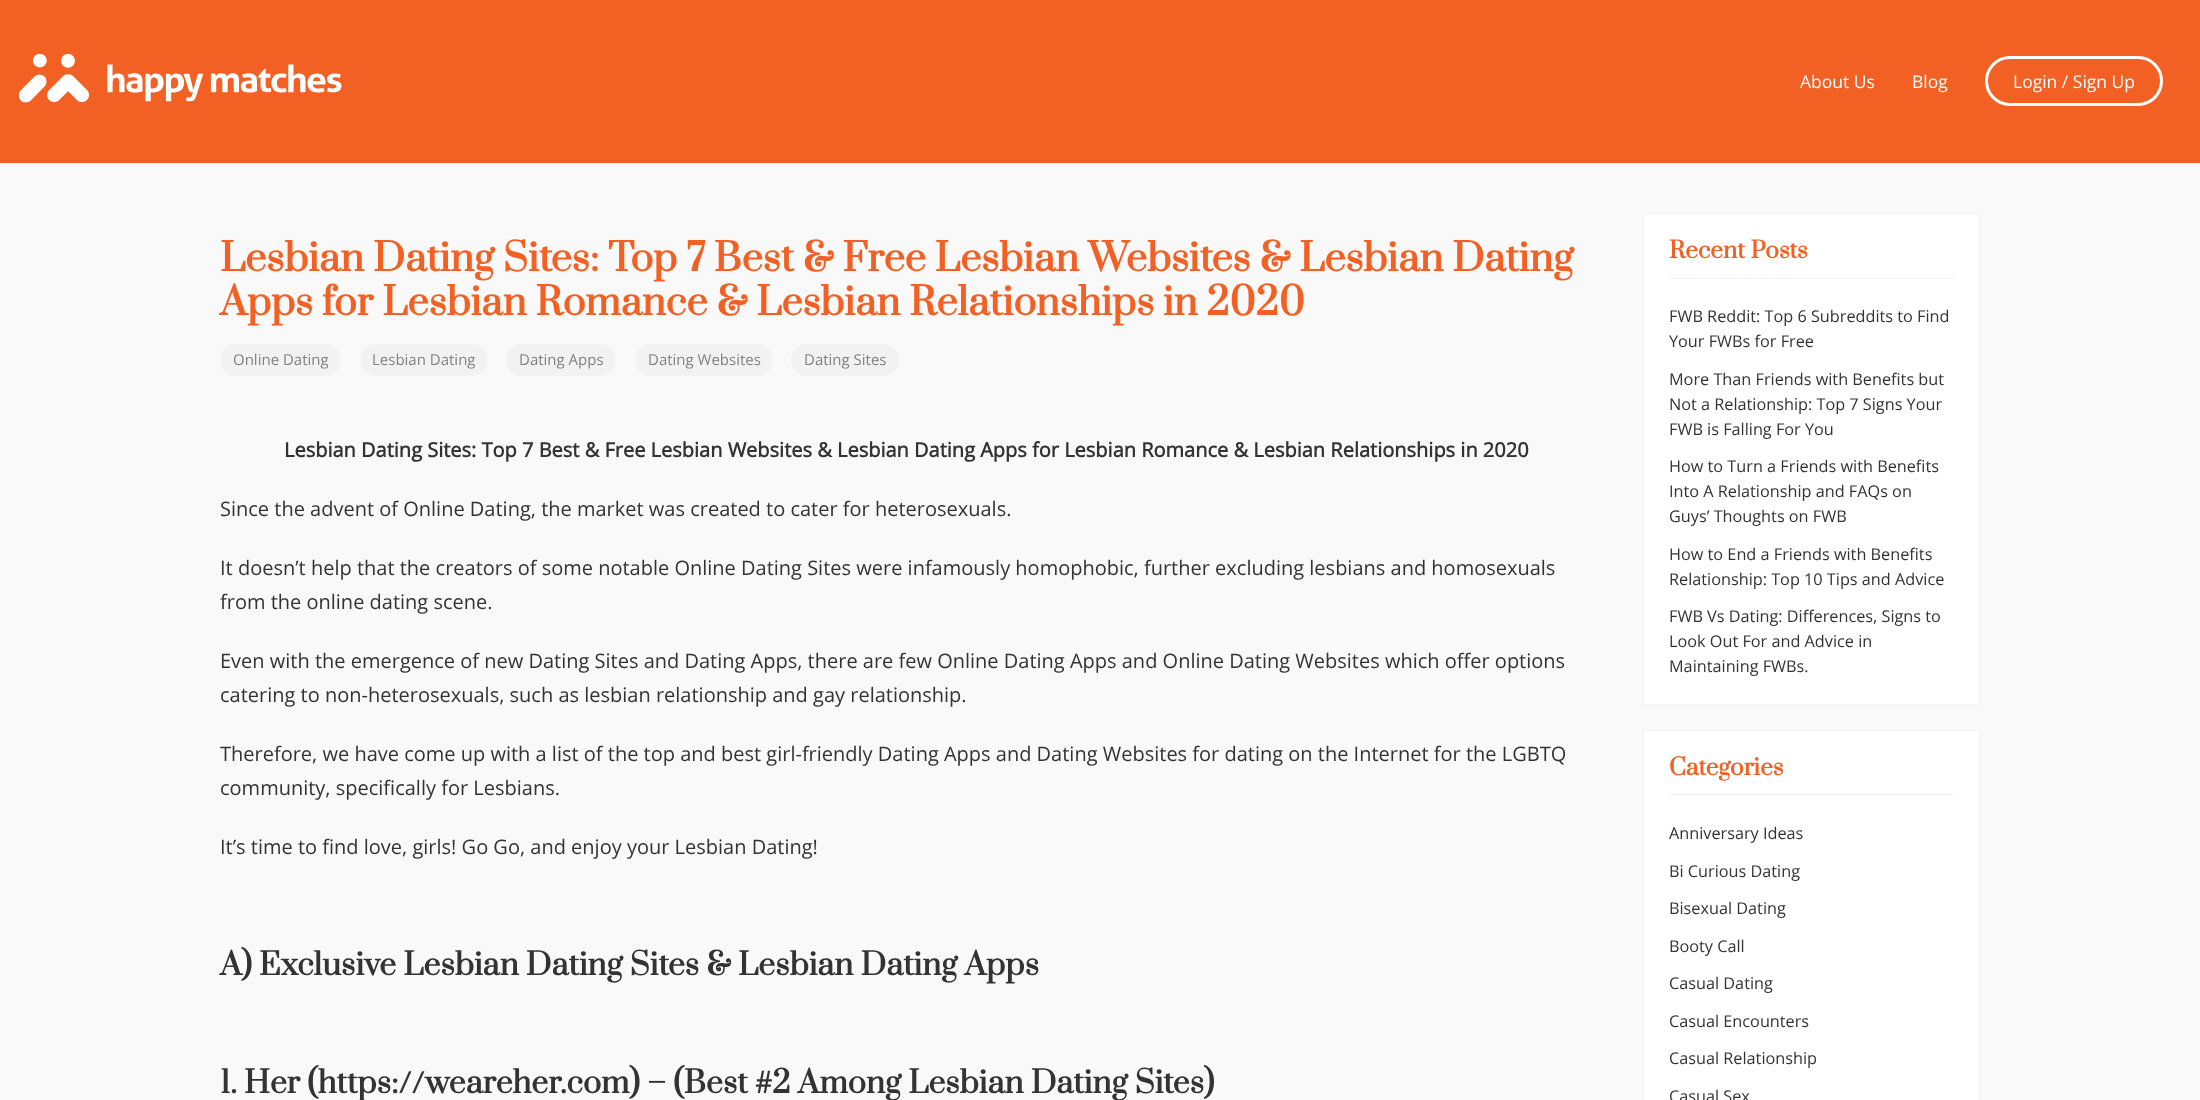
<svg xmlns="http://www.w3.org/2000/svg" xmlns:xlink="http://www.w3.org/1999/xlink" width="2200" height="1100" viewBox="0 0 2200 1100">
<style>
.cls-1{font:17.5px Open Sans;fill:#ffffff}
.cls-2{font:bold 37.5px Prata;fill:#f36023}
.cls-3{font:15px Open Sans;fill:#828282}
.cls-4{font:bold 20px Open Sans;fill:#333333}
.cls-5{font:20px Open Sans;fill:#333333}
.cls-6{font:bold 30px Prata;fill:#333333}
.cls-7{font:bold 22.5px Prata;fill:#f36023}
.cls-8{font:16.25px Open Sans;fill:#333333}
</style>
<rect width="100%" height="100%" fill="#f36023"/>
<image xlink:href="image0.png" x="19" y="54" width="323" height="49"/>
<rect fill="none" stroke="#ffffff" stroke-width="3" x="1986.5" y="57.5" width="175" height="47" rx="23.5"/>
<rect fill="#f9f9f9" x="0" y="163" width="2200" height="937"/>
<rect fill="#f2f2f2" x="220" y="344" width="121" height="32" rx="16"/>
<rect fill="#f2f2f2" x="360" y="344" width="128" height="32" rx="16"/>
<rect fill="#f2f2f2" x="506" y="344" width="110" height="32" rx="16"/>
<rect fill="#f2f2f2" x="635" y="344" width="138" height="32" rx="16"/>
<rect fill="#f2f2f2" x="791" y="344" width="108" height="32" rx="16"/>
<rect fill="#ffffff" stroke="#f2f2f2" x="1643.5" y="213.5" width="336" height="491"/>
<rect fill="#f2f2f2" x="1669" y="278" width="285" height="1"/>
<rect fill="#ffffff" stroke="#f2f2f2" x="1643.5" y="730.5" width="336" height="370"/>
<rect fill="#f2f2f2" x="1669" y="794" width="285" height="1"/>
<text class="cls-1" x="1800" y="88">About Us</text>
<text class="cls-1" x="1912" y="88">Blog</text>
<text class="cls-1" x="2013" y="88">Login / Sign Up</text>
<text class="cls-2"><tspan x="220" y="271">Lesbian Dating Sites: Top 7 Best &amp; Free Lesbian Websites &amp; Lesbian Dating</tspan><tspan x="220" y="315">Apps for Lesbian Romance &amp; Lesbian Relationships in 2020</tspan></text>
<text class="cls-3" x="233" y="365">Online Dating</text>
<text class="cls-3" x="372" y="365">Lesbian Dating</text>
<text class="cls-3" x="519" y="365">Dating Apps</text>
<text class="cls-3" x="648" y="365">Dating Websites</text>
<text class="cls-3" x="804" y="365">Dating Sites</text>
<text class="cls-4" x="284" y="457">Lesbian Dating Sites: Top 7 Best &amp; Free Lesbian Websites &amp; Lesbian Dating Apps for Lesbian Romance &amp; Lesbian Relationships in 2020</text>
<text class="cls-5" x="220" y="516">Since the advent of Online Dating, the market was created to cater for heterosexuals.</text>
<text class="cls-5"><tspan x="220" y="575">It doesn’t help that the creators of some notable Online Dating Sites were infamously homophobic, further excluding lesbians and homosexuals</tspan><tspan x="220" y="609">from the online dating scene.</tspan></text>
<text class="cls-5"><tspan x="220" y="668">Even with the emergence of new Dating Sites and Dating Apps, there are few Online Dating Apps and Online Dating Websites which offer options</tspan><tspan x="220" y="702">catering to non-heterosexuals, such as lesbian relationship and gay relationship.</tspan></text>
<text class="cls-5"><tspan x="220" y="761">Therefore, we have come up with a list of the top and best girl-friendly Dating Apps and Dating Websites for dating on the Internet for the LGBTQ</tspan><tspan x="220" y="795">community, specifically for Lesbians.</tspan></text>
<text class="cls-5" x="220" y="854">It’s time to find love, girls! Go Go, and enjoy your Lesbian Dating!</text>
<text class="cls-6" x="220" y="975">A) Exclusive Lesbian Dating Sites &amp; Lesbian Dating Apps</text>
<text class="cls-6" x="220" y="1093">1. Her (https://weareher.com) – (Best #2 Among Lesbian Dating Sites)</text>
<text class="cls-7" x="1669" y="258">Recent Posts</text>
<text class="cls-8"><tspan x="1669" y="322">FWB Reddit: Top 6 Subreddits to Find</tspan><tspan x="1669" y="347">Your FWBs for Free</tspan></text>
<text class="cls-8"><tspan x="1669" y="385">More Than Friends with Benefits but</tspan><tspan x="1669" y="410">Not a Relationship: Top 7 Signs Your</tspan><tspan x="1669" y="435">FWB is Falling For You</tspan></text>
<text class="cls-8"><tspan x="1669" y="472">How to Turn a Friends with Benefits</tspan><tspan x="1669" y="497">Into A Relationship and FAQs on</tspan><tspan x="1669" y="522">Guys’ Thoughts on FWB</tspan></text>
<text class="cls-8"><tspan x="1669" y="560">How to End a Friends with Benefits</tspan><tspan x="1669" y="585">Relationship: Top 10 Tips and Advice</tspan></text>
<text class="cls-8"><tspan x="1669" y="622">FWB Vs Dating: Differences, Signs to</tspan><tspan x="1669" y="647">Look Out For and Advice in</tspan><tspan x="1669" y="672">Maintaining FWBs.</tspan></text>
<text class="cls-7" x="1669" y="775">Categories</text>
<text class="cls-8" x="1669" y="839">Anniversary Ideas</text>
<text class="cls-8" x="1669" y="877">Bi Curious Dating</text>
<text class="cls-8" x="1669" y="914">Bisexual Dating</text>
<text class="cls-8" x="1669" y="952">Booty Call</text>
<text class="cls-8" x="1669" y="989">Casual Dating</text>
<text class="cls-8" x="1669" y="1027">Casual Encounters</text>
<text class="cls-8" x="1669" y="1064">Casual Relationship</text>
<text class="cls-8" x="1669" y="1102">Casual Sex</text>
</svg>
